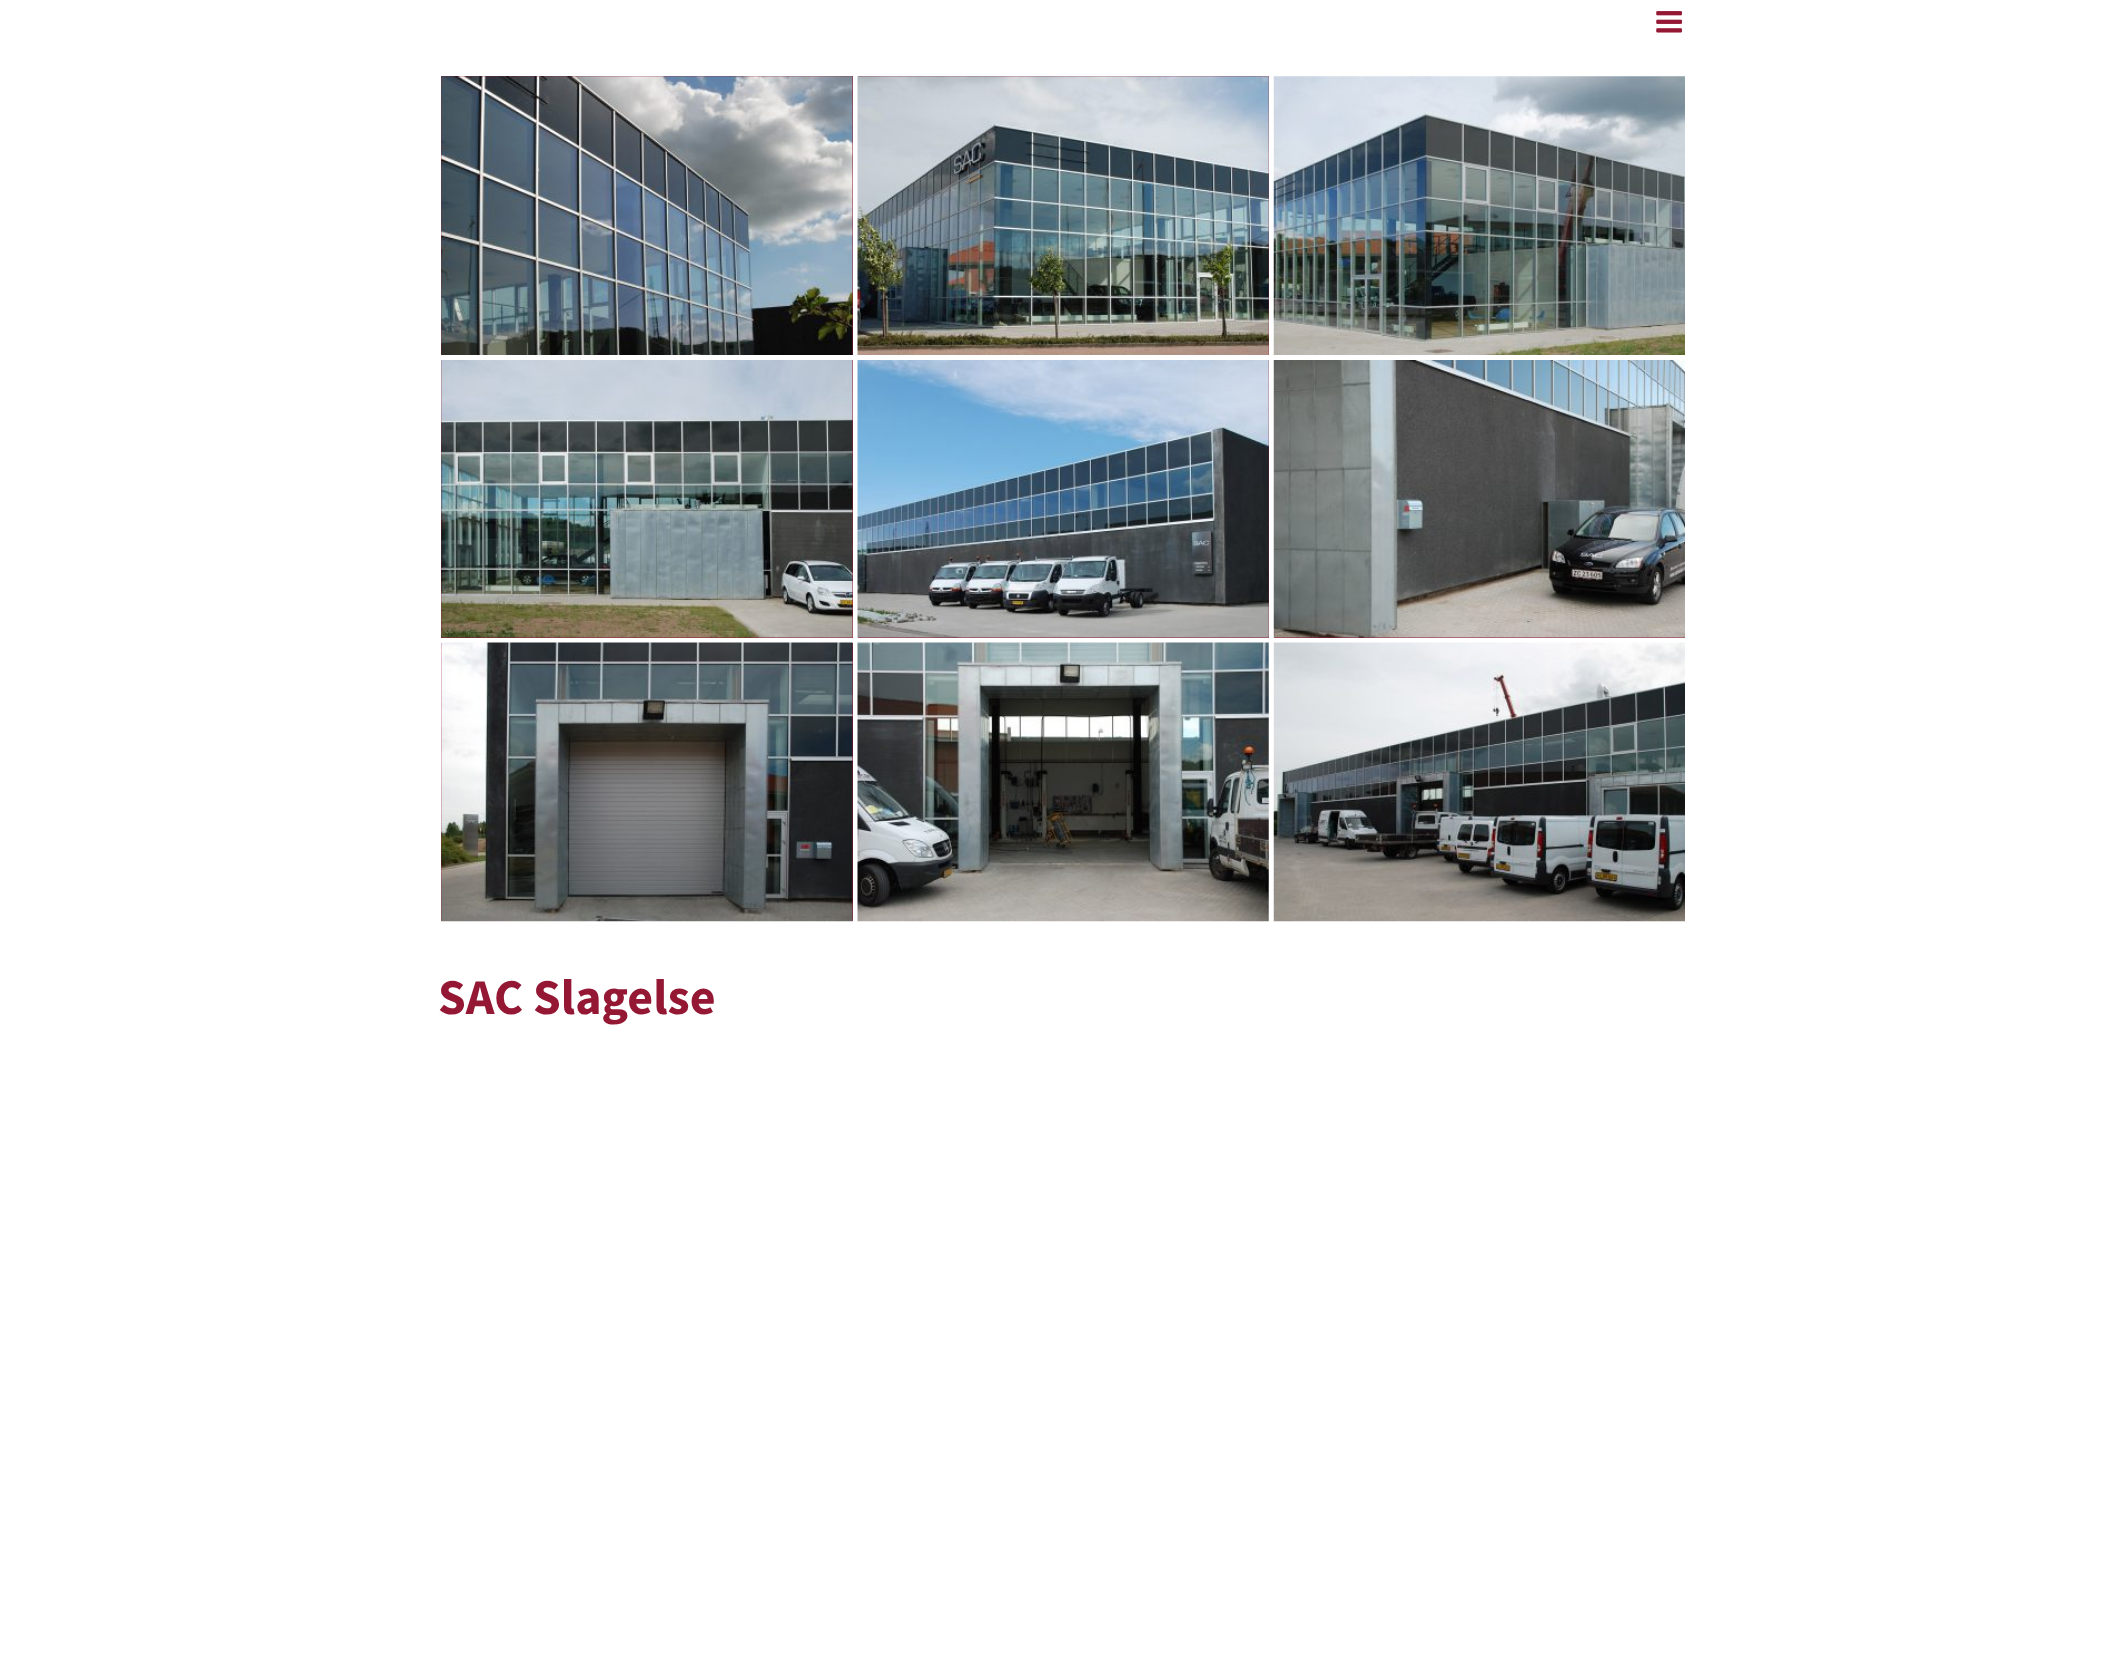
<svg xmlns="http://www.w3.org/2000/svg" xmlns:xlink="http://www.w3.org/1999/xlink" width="2126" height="1673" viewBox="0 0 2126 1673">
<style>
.cls-1{font:bold 50px Source Sans Pro;fill:#941733}
</style>
<rect width="100%" height="100%" fill="#ffffff"/>
<image xlink:href="image0.png" x="1656" y="11" width="26" height="22"/>
<rect fill="#941733" x="441" y="76" width="412" height="279"/>
<image xlink:href="image1.png" x="441" y="76" width="412" height="279"/>
<rect fill="#941733" x="858" y="76" width="411" height="279"/>
<image xlink:href="image2.png" x="857" y="76" width="412" height="279"/>
<image xlink:href="image3.png" x="1273" y="76" width="412" height="279"/>
<rect fill="#941733" x="441" y="360" width="412" height="278"/>
<image xlink:href="image4.png" x="441" y="360" width="412" height="278"/>
<rect fill="#941733" x="858" y="360" width="411" height="278"/>
<image xlink:href="image5.png" x="857" y="360" width="412" height="278"/>
<rect fill="#941733" x="1274" y="637" width="411" height="1"/>
<image xlink:href="image6.png" x="1273" y="360" width="412" height="278"/>
<rect fill="#941733" x="441" y="643" width="412" height="278"/>
<image xlink:href="image7.png" x="441" y="642" width="412" height="280"/>
<image xlink:href="image8.png" x="857" y="642" width="412" height="280"/>
<image xlink:href="image9.png" x="1273" y="642" width="412" height="280"/>
<text class="cls-1" x="438" y="1014">SAC Slagelse</text>
</svg>
